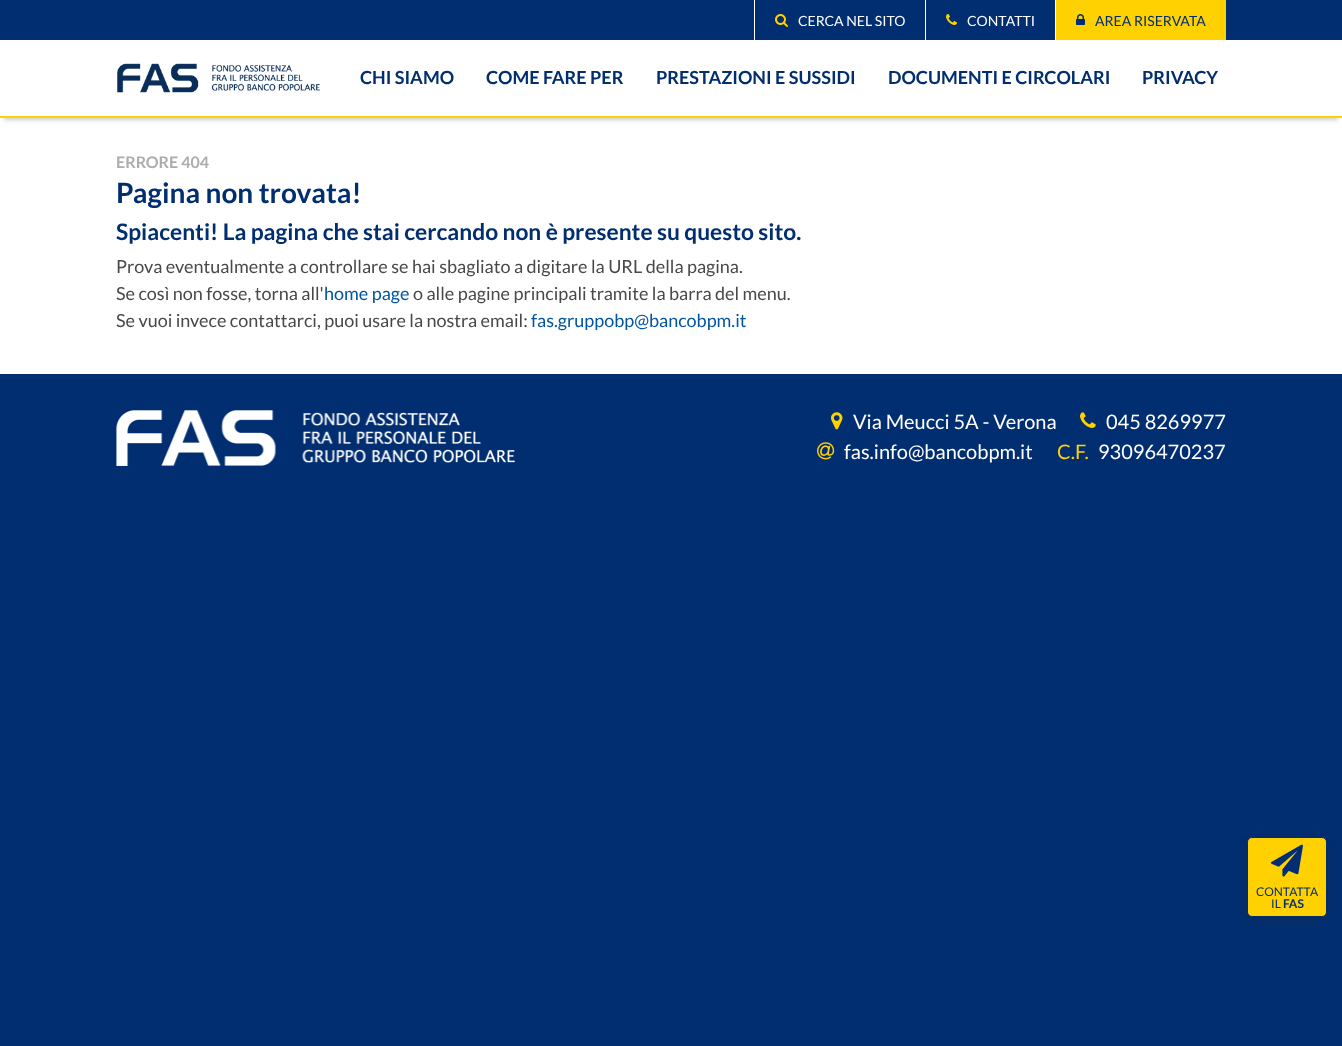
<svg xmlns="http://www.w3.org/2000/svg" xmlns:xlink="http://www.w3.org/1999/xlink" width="1342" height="1046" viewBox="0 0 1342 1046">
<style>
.cls-1{font:14px Lato;fill:#ffffff}
.cls-2{font:14px Lato;fill:#002e70}
.cls-3{font:bold 18px Lato;fill:#002e70}
.cls-4{font:bold 16px Lato;fill:#adadad}
.cls-5{font:bold 28px Lato;fill:#002e70}
.cls-6{font:bold 22.75px Lato;fill:#002e70}
.cls-7{font:18px Lato;fill:#484848}
.cls-8{font:18px Lato;fill:#0055a2}
.cls-9{font:20px Lato;fill:#ffffff}
.cls-10{font:20px Lato;fill:#ffd100}
.cls-11{font:12px Lato;fill:#002e70}
.cls-12{font:bold 12px Lato;fill:#002e70}
</style>
<rect width="100%" height="100%" fill="#002e70"/>
<rect fill="#ffffff" x="754" y="0" width="1" height="40"/>
<image xlink:href="image0.png" x="775" y="14" width="13" height="13"/>
<rect fill="#ffffff" x="925" y="0" width="1" height="40"/>
<image xlink:href="image1.png" x="946" y="14" width="11" height="11"/>
<rect fill="#ffd100" x="1056" y="0" width="170" height="40"/>
<rect fill="#ffffff" x="1055" y="0" width="1" height="40"/>
<image xlink:href="image2.png" x="1076" y="14" width="9" height="11"/>
<rect fill="#ffffff" x="0" y="118" width="1342" height="256"/>
<rect fill="#000000" fill-opacity="0.2" filter="blur(2px)" x="4" y="50" width="1334" height="70"/>
<rect fill="#ffffff" x="0" y="40" width="1342" height="76"/>
<rect fill="#ffd100" x="0" y="116" width="1342" height="2"/>
<image xlink:href="image3.png" x="117" y="63" width="203" height="30"/>
<image xlink:href="image4.png" x="116" y="410" width="399" height="56"/>
<image xlink:href="image5.png" x="831" y="412" width="12" height="18"/>
<image xlink:href="image6.png" x="1080" y="412" width="16" height="16"/>
<image xlink:href="image7.png" x="817" y="442" width="18" height="18"/>
<rect fill="#000000" fill-opacity="0.3" filter="blur(3.5px)" x="1250" y="843" width="74" height="74" rx="2"/>
<rect fill="#32325d" fill-opacity="0.25" filter="blur(6px)" x="1249" y="845" width="76" height="76" rx="3"/>
<rect fill="#ffd100" stroke="#002e70" x="1247.5" y="837.5" width="79" height="79" rx="4.5"/>
<image xlink:href="image8.png" x="1271" y="844" width="32" height="33"/>
<text class="cls-1" x="798" y="26">CERCA NEL SITO</text>
<text class="cls-1" x="967" y="26">CONTATTI</text>
<text class="cls-2" x="1095" y="26">AREA RISERVATA</text>
<text class="cls-3" x="360" y="84">CHI SIAMO</text>
<text class="cls-3" x="486" y="84">COME FARE PER</text>
<text class="cls-3" x="656" y="84">PRESTAZIONI E SUSSIDI</text>
<text class="cls-3" x="888" y="84">DOCUMENTI E CIRCOLARI</text>
<text class="cls-3" x="1142" y="84">PRIVACY</text>
<text class="cls-4" x="116" y="168">ERRORE 404</text>
<text class="cls-5" x="116" y="203">Pagina non trovata!</text>
<text class="cls-6" x="116" y="240">Spiacenti! La pagina che stai cercando non è presente su questo sito.</text>
<text class="cls-7"><tspan x="116" y="273">Prova eventualmente a controllare se hai sbagliato a digitare la URL della pagina.</tspan><tspan x="116" y="300">Se così non fosse, torna all'</tspan></text>
<text class="cls-8" x="324" y="300">home page</text>
<text class="cls-7" x="413" y="300">o alle pagine principali tramite la barra del menu.</text>
<text class="cls-7" x="116" y="327">Se vuoi invece contattarci, puoi usare la nostra email:</text>
<text class="cls-8" x="531" y="327">fas.gruppobp@bancobpm.it</text>
<text class="cls-9" x="853" y="429">Via Meucci 5A - Verona</text>
<text class="cls-9" x="1106" y="429">045 8269977</text>
<text class="cls-9" x="844" y="459">fas.info@bancobpm.it</text>
<text class="cls-10" x="1057" y="459">C.F.</text>
<text class="cls-9" x="1098" y="459">93096470237</text>
<text class="cls-11" x="1256" y="896">CONTATTA</text>
<text class="cls-11" x="1271" y="908">IL</text>
<text class="cls-12" x="1283" y="908">FAS</text>
</svg>
